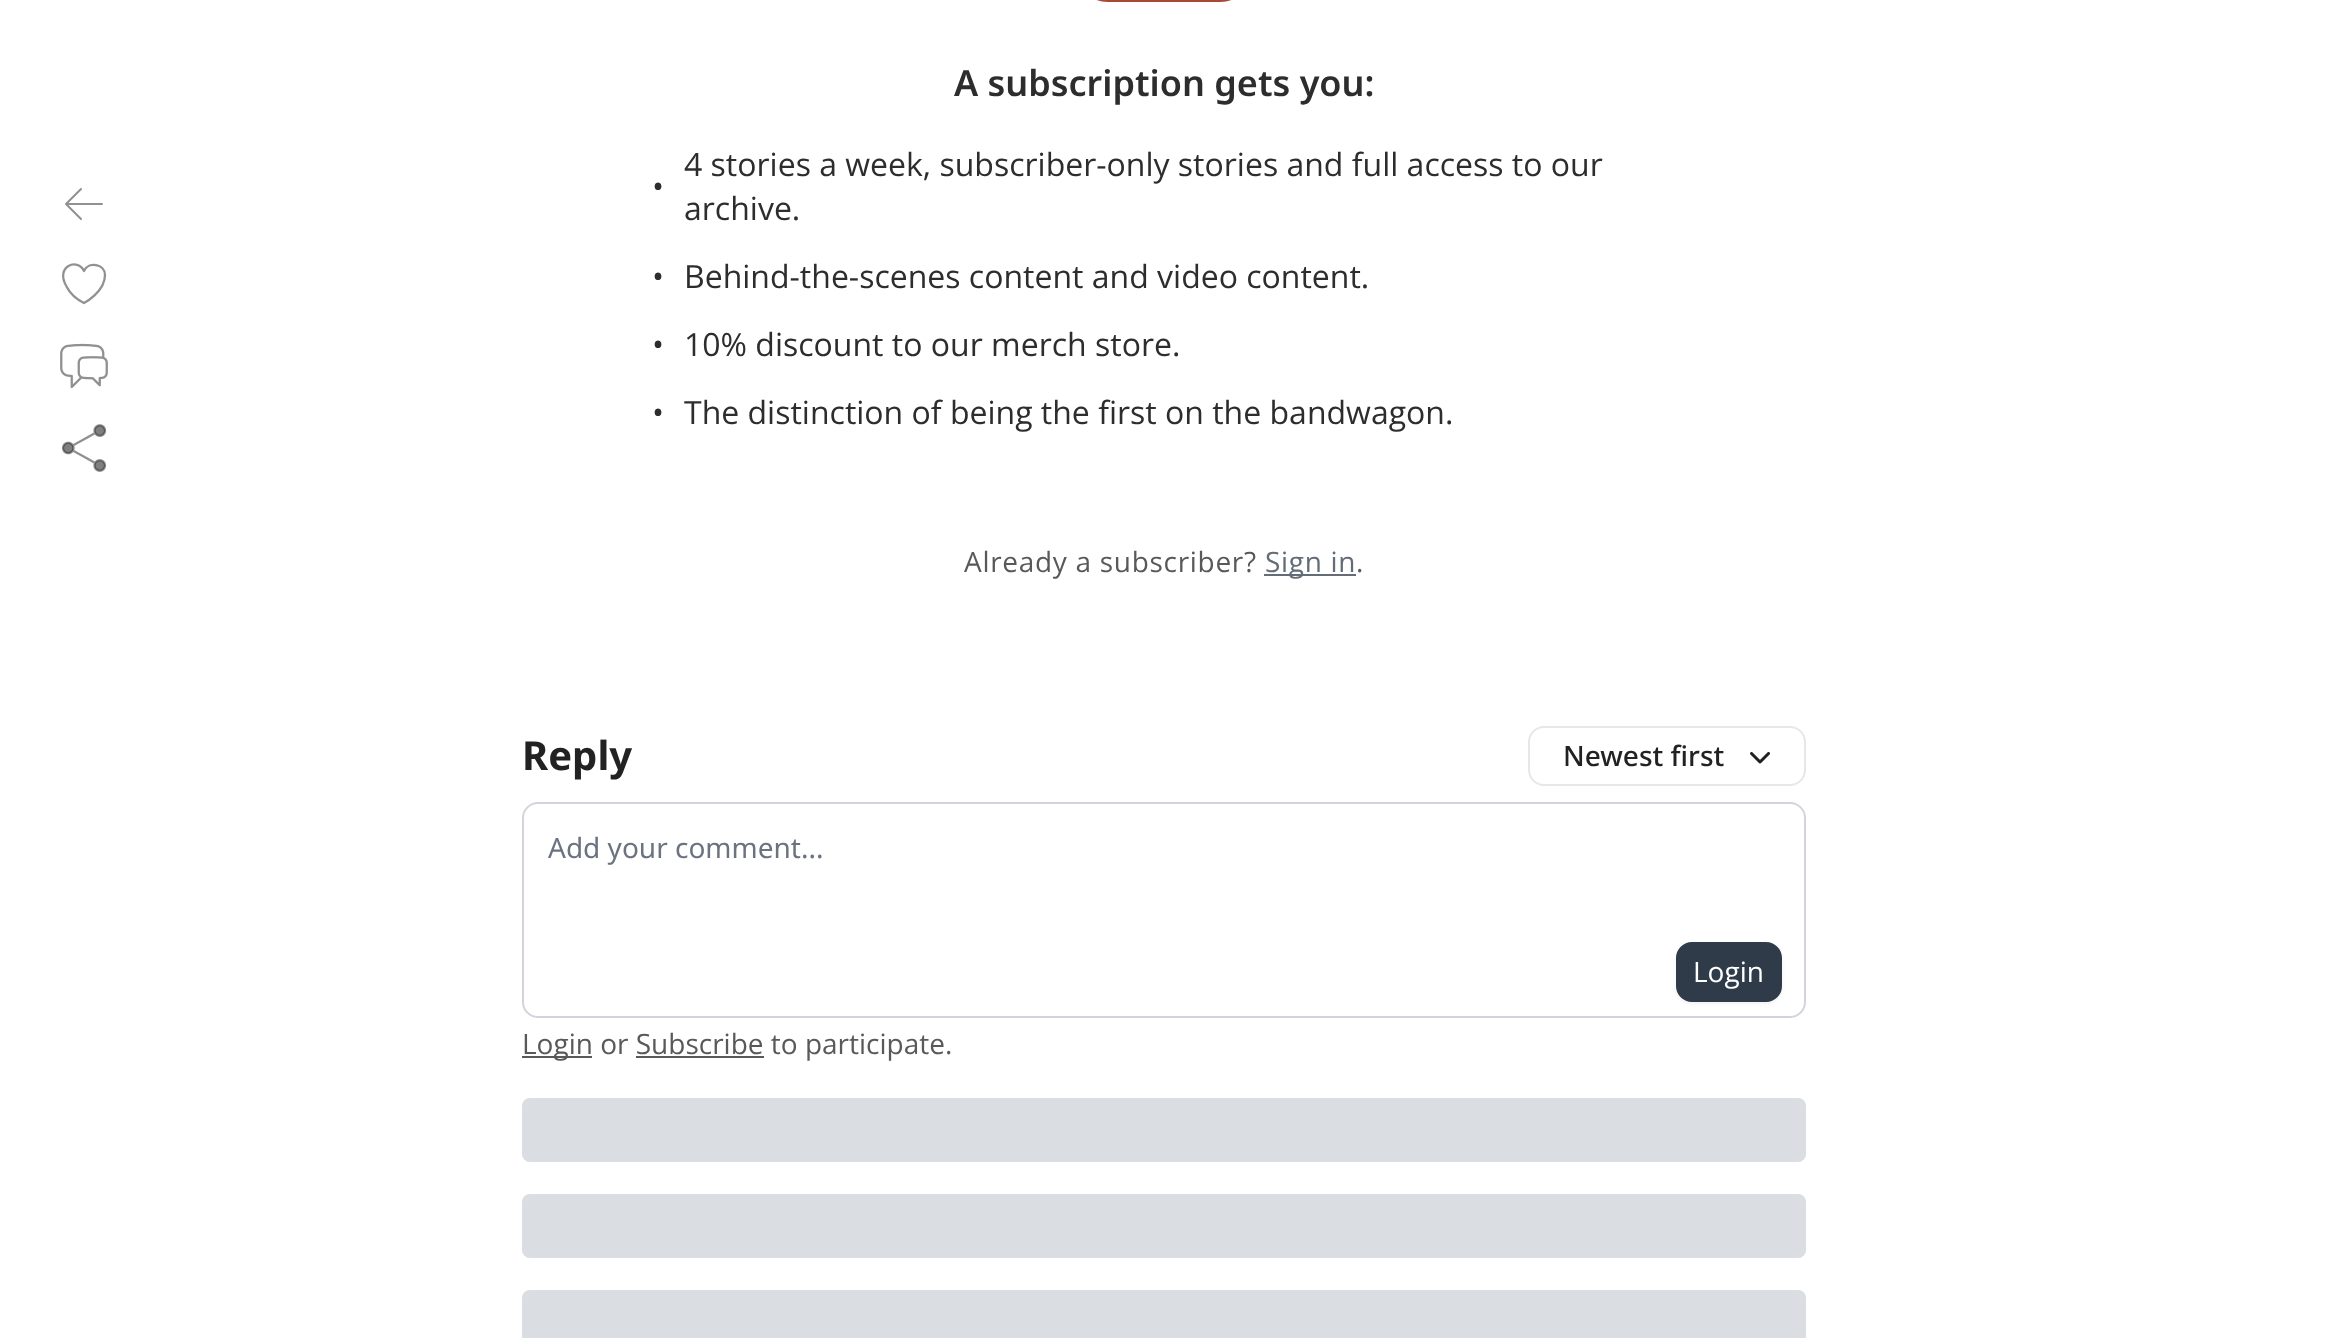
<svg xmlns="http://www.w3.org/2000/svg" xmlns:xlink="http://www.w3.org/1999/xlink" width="2328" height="1338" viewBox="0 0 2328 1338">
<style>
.cls-1{font:600 36px Noto Sans;fill:#2d2d2d}
.cls-2{font:32px Open Sans;fill:#2d2d2d}
.cls-3{font:28px Open Sans;letter-spacing:0.7px;fill:#595959}
.cls-4{font:28px Open Sans;letter-spacing:0.7px;fill:#646c77}
.cls-5{font:bold 40px Noto Sans;fill:#222222}
.cls-6{font:500 28px Noto Sans;fill:#222222}
.cls-7{font:28px Noto Sans;fill:#6b7280}
.cls-8{font:28px Open Sans;fill:#ffffff}
.cls-9{font:28px Open Sans;fill:#595959}
</style>
<rect width="100%" height="100%" fill="#ffffff"/>
<path fill="none" stroke="#919191" stroke-width="2" stroke-linecap="round" stroke-linejoin="round" d="M81 219L66 204M66 204L81 189M66 204H102"/>
<path fill="none" stroke="#919191" stroke-width="2.3" stroke-linecap="round" stroke-linejoin="round" d="M105 275C105 264 88.5 261 84 271C78 257.5 54.5 266 66.5 286.5C70 293.5 77 299.5 84 303C84 303 105 292 105 275Z"/>
<image xlink:href="image0.png" x="60" y="343" width="48" height="46"/>
<image xlink:href="image1.png" x="61" y="424" width="46" height="48"/>
<rect fill="#aa4837" x="1088" y="-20" width="152" height="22" rx="20"/>
<rect fill="#646c77" x="1264" y="574" width="92" height="2"/>
<rect fill="none" stroke="#e5e7eb" stroke-width="2" x="1529" y="727" width="276" height="58" rx="15"/>
<image xlink:href="image2.png" x="1750" y="752" width="20" height="12"/>
<rect fill="none" stroke="#d1d5db" stroke-width="2" x="523" y="803" width="1282" height="214" rx="15"/>
<rect fill="#000000" fill-opacity="0.05" filter="blur(2px)" x="1676" y="944" width="106" height="60" rx="16"/>
<rect fill="#303b4a" stroke="#303b4a" stroke-width="2" x="1677" y="943" width="104" height="58" rx="15"/>
<rect fill="#595959" x="522" y="1056" width="70" height="2"/>
<rect fill="#595959" x="636" y="1056" width="128" height="2"/>
<rect fill="#dadde2" x="522" y="1098" width="1284" height="64" rx="8"/>
<rect fill="#dadde2" x="522" y="1194" width="1284" height="64" rx="8"/>
<rect fill="#dadde2" x="522" y="1290" width="1284" height="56" rx="8"/>
<text class="cls-1" x="954" y="96">A subscription gets you:</text>
<text class="cls-2" x="684" y="176">4 stories a week, subscriber-only stories and full access to our</text>
<text class="cls-2" x="652" y="198">•</text>
<text class="cls-2" x="684" y="220">archive.</text>
<text class="cls-2" x="652" y="288">•</text>
<text class="cls-2" x="684" y="288">Behind-the-scenes content and video content.</text>
<text class="cls-2" x="652" y="356">•</text>
<text class="cls-2" x="684" y="356">10% discount to our merch store.</text>
<text class="cls-2" x="652" y="424">•</text>
<text class="cls-2" x="684" y="424">The distinction of being the first on the bandwagon.</text>
<text class="cls-3" x="964" y="572">Already a subscriber?</text>
<text class="cls-4" x="1265" y="572">Sign in</text>
<text class="cls-3" x="1356" y="572">.</text>
<text class="cls-5" x="522" y="770">Reply</text>
<text class="cls-6" x="1563" y="766">Newest first</text>
<text class="cls-7" x="548" y="858">Add your comment...</text>
<text class="cls-8" x="1693" y="982">Login</text>
<text class="cls-9" x="522" y="1054">Login or Subscribe to participate.</text>
</svg>
